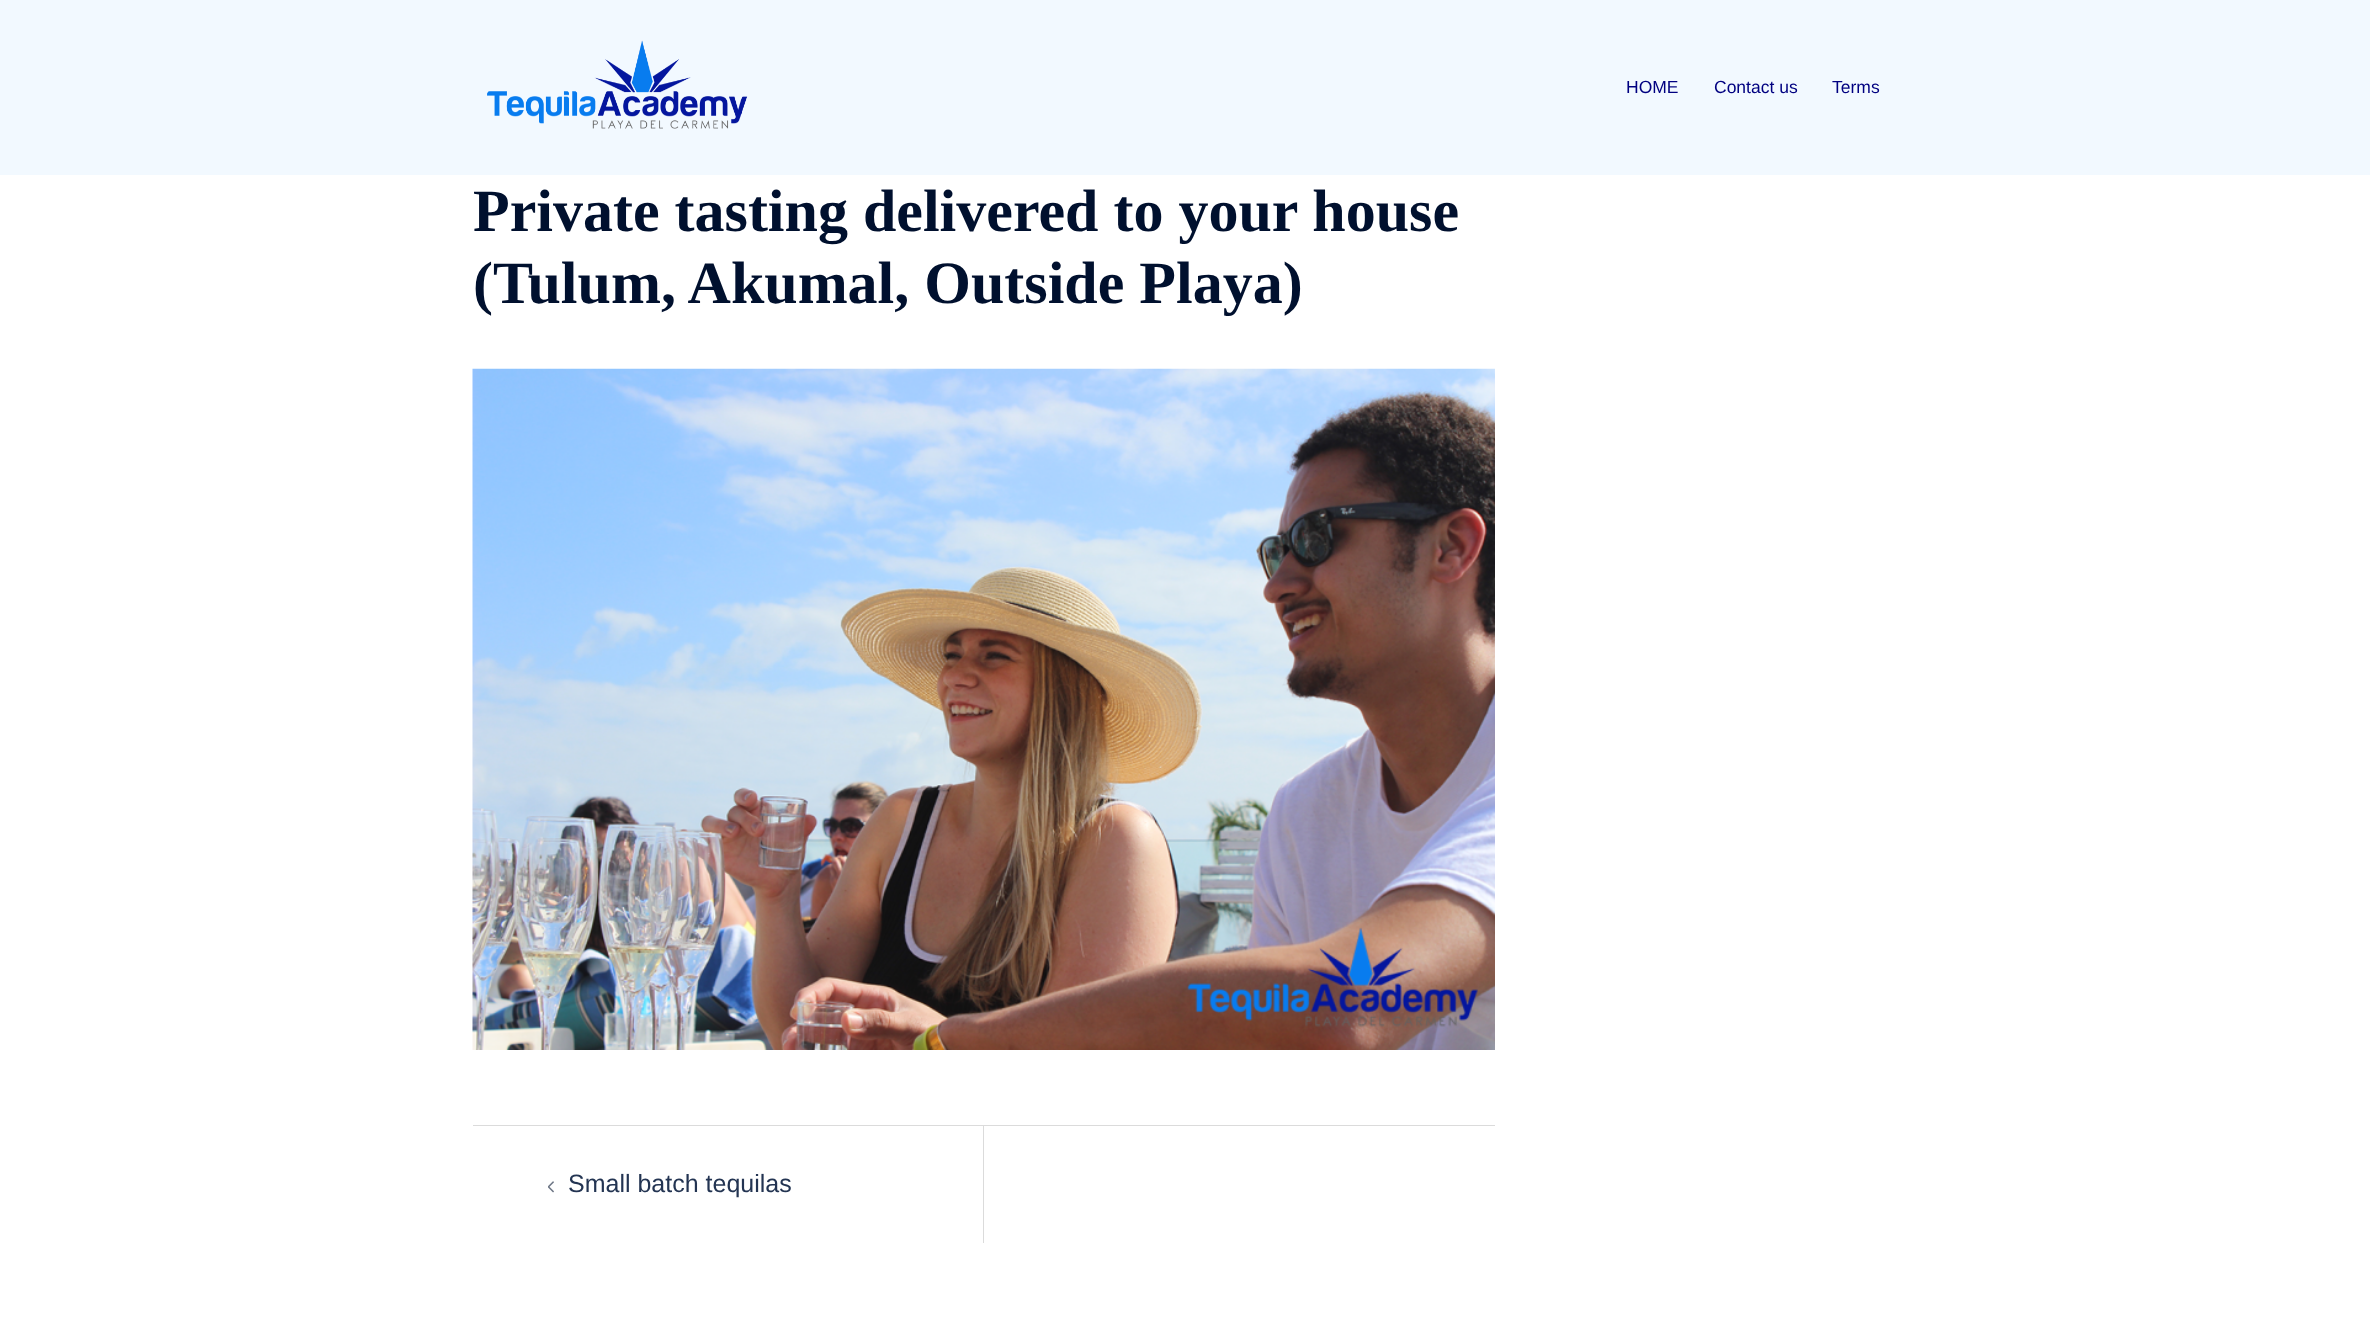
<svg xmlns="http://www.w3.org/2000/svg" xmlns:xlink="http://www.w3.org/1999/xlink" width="2370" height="1339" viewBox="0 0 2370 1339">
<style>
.cls-1{font:17.5px Liberation Sans;fill:#000080}
.cls-2{font:bold 60px Liberation Serif;fill:#00102e}
.cls-3{font:25px Liberation Sans;fill:#233452}
</style>
<rect width="100%" height="100%" fill="#ffffff"/>
<rect fill="#f2f9ff" x="0" y="0" width="2370" height="175"/>
<image xlink:href="image0.png" x="487" y="40" width="261" height="89"/>
<image xlink:href="image1.png" x="472" y="368" width="1023" height="682"/>
<rect fill="#dbdbdb" x="473" y="1125" width="1022" height="1"/>
<rect fill="#dbdbdb" x="983" y="1126" width="1" height="117"/>
<image xlink:href="image2.png" x="548" y="1181" width="6" height="12"/>
<text class="cls-1" x="1626" y="93">HOME</text>
<text class="cls-1" x="1714" y="93">Contact us</text>
<text class="cls-1" x="1832" y="93">Terms</text>
<text class="cls-2"><tspan x="473" y="231">Private tasting delivered to your house</tspan><tspan x="473" y="303">(Tulum, Akumal, Outside Playa)</tspan></text>
<text class="cls-3" x="568" y="1192">Small batch tequilas</text>
</svg>
